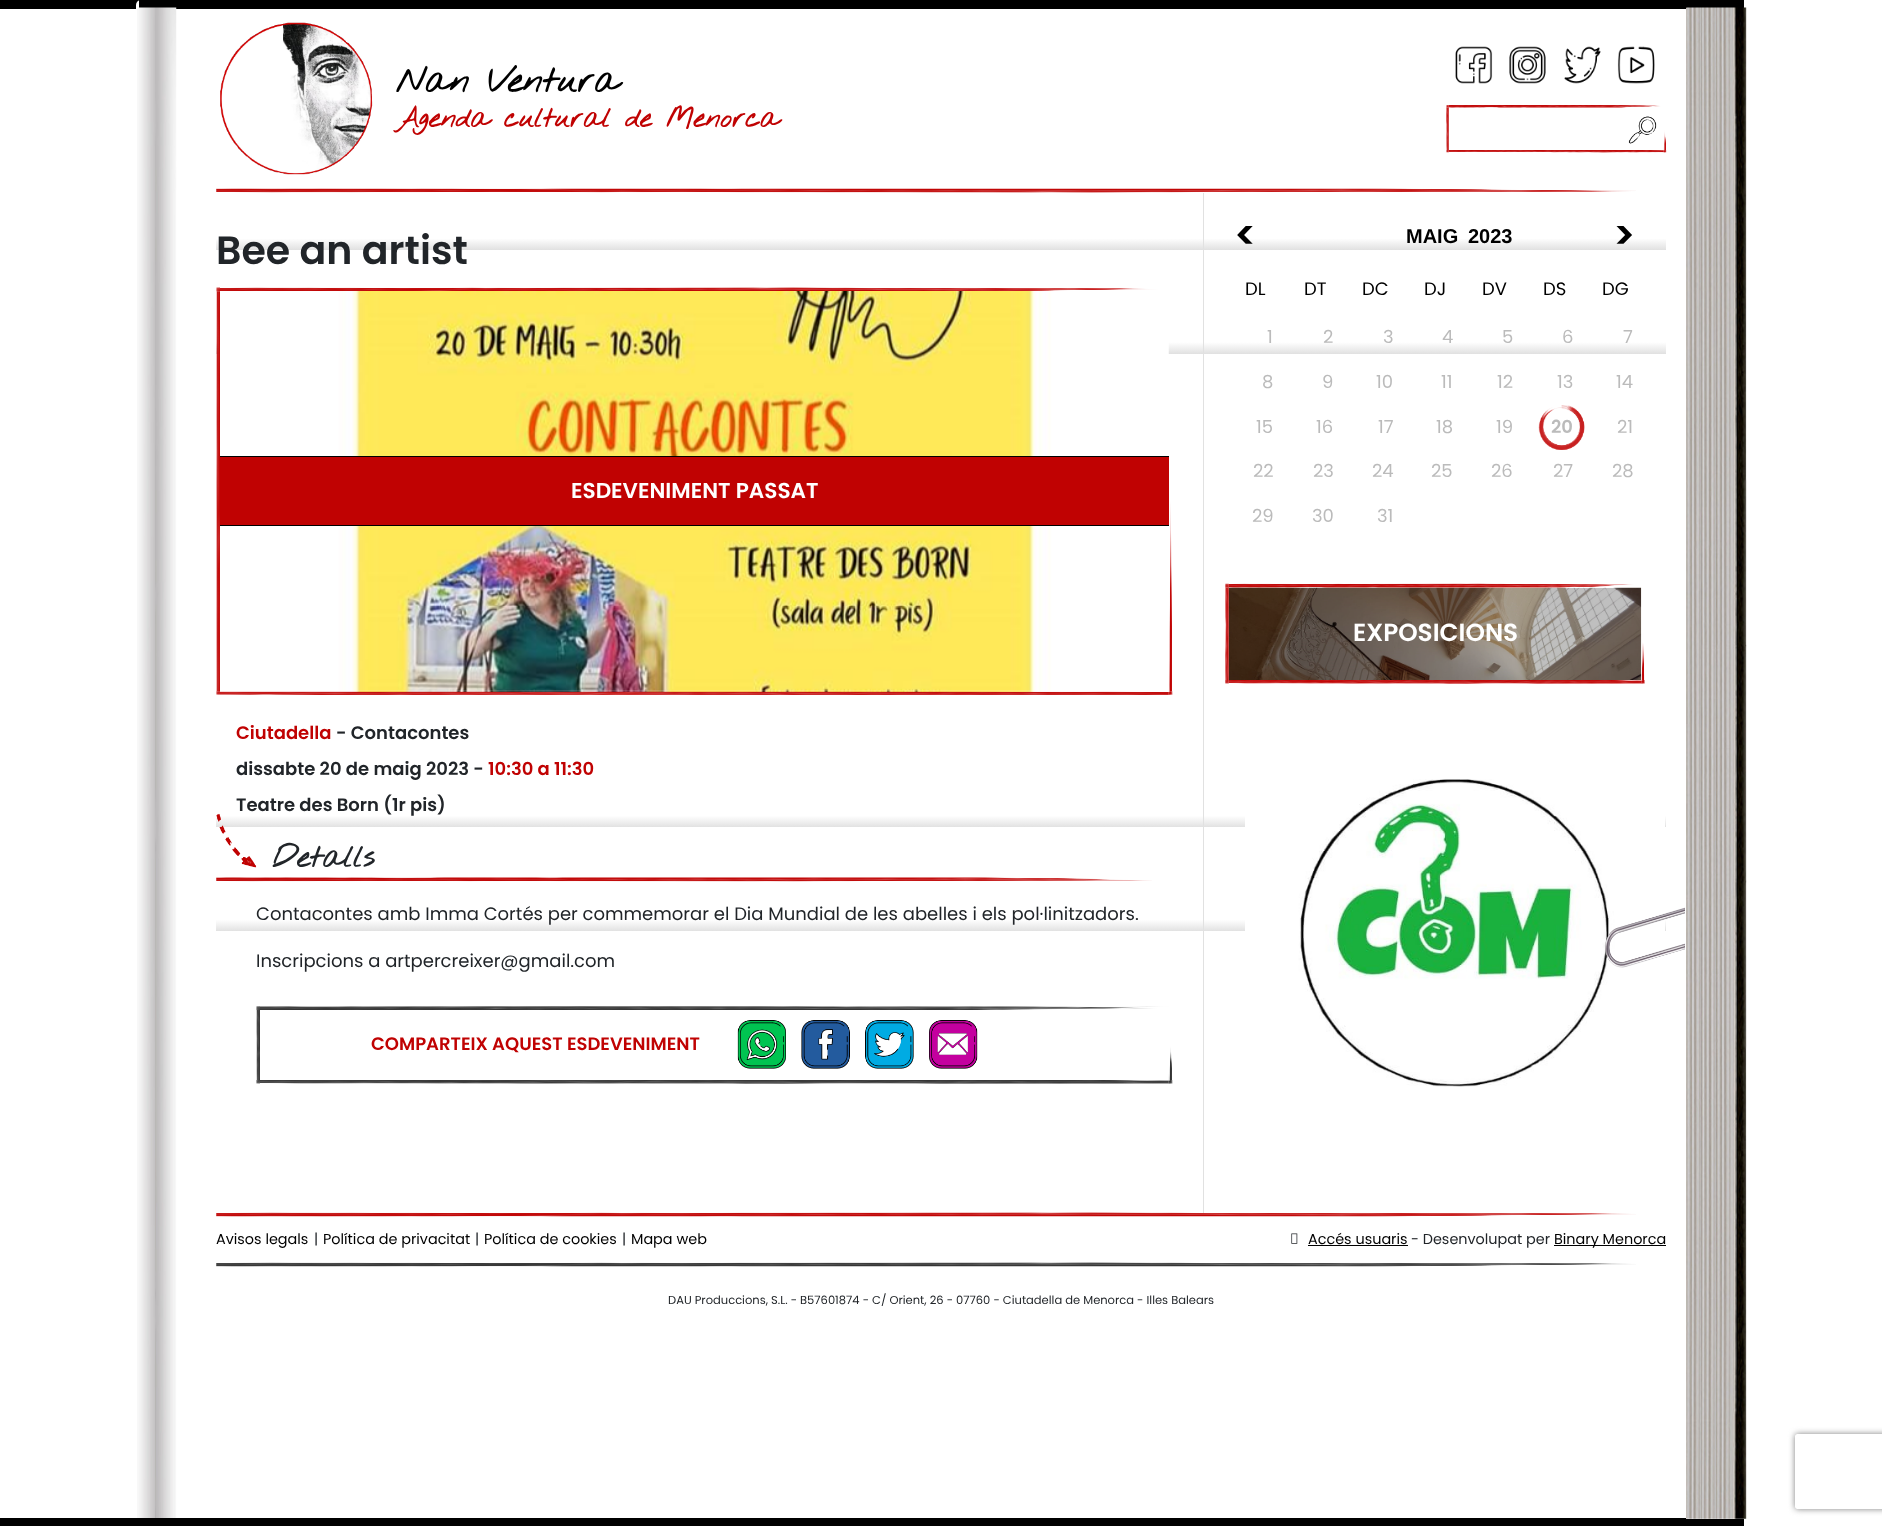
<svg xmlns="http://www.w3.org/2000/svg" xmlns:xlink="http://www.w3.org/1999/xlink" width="1882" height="1526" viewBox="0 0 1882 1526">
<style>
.cls-1{font:bold 35.5px Nothing You Could Do;fill:#000000}
.cls-2{font:bold 27.5px Nothing You Could Do;fill:#c00202}
.cls-3{font:600 39.5px Poppins;fill:#212529}
.cls-4{font:600 21.6px Poppins;fill:#ffffff}
.cls-5{font:600 18px Poppins;fill:#c00202}
.cls-6{font:600 18px Poppins;fill:#212529}
.cls-7{font:bold 30.5px Nothing You Could Do;fill:#212529}
.cls-8{font:18px Poppins;fill:#212529}
.cls-9{font:600 39.5px Poppins;fill:#000000}
.cls-10{font:bold 20px Liberation Sans;fill:#000000}
.cls-11{font:18px Poppins;fill:#000000}
.cls-12{font:18px Poppins;fill:#bbbbbb}
.cls-13{font:600 18px Poppins;fill:#bbbbbb}
.cls-14{font:600 24.75px Poppins;fill:#ffffff}
.cls-15{font:14.4px Poppins;fill:#000000}
.cls-16{font:14.4px Poppins;fill:#212529}
.cls-17{font:11.5px Poppins;fill:#212529}
</style>
<defs>
<linearGradient id="g1" gradientUnits="userSpaceOnUse" x1="941" y1="192" x2="941" y2="1347"><stop offset="0" stop-color="#ffffff"/><stop offset="0.04" stop-color="#ffffff"/><stop offset="0.05" stop-color="#e1e1e1"/><stop offset="0.05" stop-color="#ffffff"/><stop offset="0.09" stop-color="#ffffff"/><stop offset="0.09" stop-color="#e1e1e1"/><stop offset="0.09" stop-color="#ffffff"/><stop offset="0.13" stop-color="#ffffff"/><stop offset="0.14" stop-color="#e1e1e1"/><stop offset="0.14" stop-color="#ffffff"/><stop offset="0.18" stop-color="#ffffff"/><stop offset="0.18" stop-color="#e1e1e1"/><stop offset="0.18" stop-color="#ffffff"/><stop offset="0.23" stop-color="#ffffff"/><stop offset="0.23" stop-color="#e1e1e1"/><stop offset="0.23" stop-color="#ffffff"/><stop offset="0.27" stop-color="#ffffff"/><stop offset="0.27" stop-color="#e1e1e1"/><stop offset="0.27" stop-color="#ffffff"/><stop offset="0.32" stop-color="#ffffff"/><stop offset="0.32" stop-color="#e1e1e1"/><stop offset="0.32" stop-color="#ffffff"/><stop offset="0.36" stop-color="#ffffff"/><stop offset="0.36" stop-color="#e1e1e1"/><stop offset="0.36" stop-color="#ffffff"/><stop offset="0.41" stop-color="#ffffff"/><stop offset="0.41" stop-color="#e1e1e1"/><stop offset="0.41" stop-color="#ffffff"/><stop offset="0.45" stop-color="#ffffff"/><stop offset="0.45" stop-color="#e1e1e1"/><stop offset="0.45" stop-color="#ffffff"/><stop offset="0.5" stop-color="#ffffff"/><stop offset="0.5" stop-color="#e1e1e1"/><stop offset="0.5" stop-color="#ffffff"/><stop offset="0.54" stop-color="#ffffff"/><stop offset="0.55" stop-color="#e1e1e1"/><stop offset="0.55" stop-color="#ffffff"/><stop offset="0.59" stop-color="#ffffff"/><stop offset="0.59" stop-color="#e1e1e1"/><stop offset="0.59" stop-color="#ffffff"/><stop offset="0.63" stop-color="#ffffff"/><stop offset="0.64" stop-color="#e1e1e1"/><stop offset="0.64" stop-color="#ffffff"/><stop offset="0.68" stop-color="#ffffff"/><stop offset="0.68" stop-color="#e1e1e1"/><stop offset="0.68" stop-color="#ffffff"/><stop offset="0.73" stop-color="#ffffff"/><stop offset="0.73" stop-color="#e1e1e1"/><stop offset="0.73" stop-color="#ffffff"/><stop offset="0.77" stop-color="#ffffff"/><stop offset="0.77" stop-color="#e1e1e1"/><stop offset="0.77" stop-color="#ffffff"/><stop offset="0.82" stop-color="#ffffff"/><stop offset="0.82" stop-color="#e1e1e1"/><stop offset="0.82" stop-color="#ffffff"/><stop offset="0.86" stop-color="#ffffff"/><stop offset="0.86" stop-color="#e1e1e1"/><stop offset="0.86" stop-color="#ffffff"/><stop offset="0.91" stop-color="#ffffff"/><stop offset="0.91" stop-color="#e1e1e1"/><stop offset="0.91" stop-color="#ffffff"/><stop offset="0.95" stop-color="#ffffff"/><stop offset="0.95" stop-color="#e1e1e1"/><stop offset="0.95" stop-color="#ffffff"/><stop offset="1" stop-color="#ffffff"/><stop offset="1" stop-color="#e1e1e1"/></linearGradient>
<clipPath id="clip1"><path d="M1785 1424H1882V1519H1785ZM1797.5 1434H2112.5C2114 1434 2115 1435 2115 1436.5V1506.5C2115 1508 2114 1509 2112.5 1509H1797.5C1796 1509 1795 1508 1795 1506.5V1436.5C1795 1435 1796 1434 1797.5 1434Z" clip-rule="evenodd"/></clipPath>
</defs>
<rect width="100%" height="100%" fill="#ffffff"/>
<rect fill="#000000" x="0" y="0" width="139" height="9"/>
<rect fill="#ffffff" x="136" y="0" width="1610" height="1526" rx="5"/>
<rect fill="#000000" x="139" y="0" width="1605" height="9"/>
<rect fill="#000000" x="0" y="1518" width="1744" height="8"/>
<image xlink:href="image0.png" x="137" y="7" width="40" height="1511"/>
<image xlink:href="image1.png" x="216" y="188" width="1420" height="5"/>
<image xlink:href="image2.png" x="220" y="22" width="153" height="153"/>
<image xlink:href="image3.png" x="1455" y="46" width="38" height="38"/>
<image xlink:href="image4.png" x="1509" y="46" width="37" height="38"/>
<image xlink:href="image5.png" x="1564" y="46" width="37" height="38"/>
<image xlink:href="image6.png" x="1617" y="46" width="38" height="38"/>
<image xlink:href="image7.png" x="1446" y="105" width="221" height="48"/>
<image xlink:href="image8.png" x="1628" y="116" width="29" height="28"/>
<rect fill="#ffffff" x="1686" y="8" width="58" height="1511"/>
<image xlink:href="image9.png" x="1686" y="7" width="61" height="1512"/>
<rect fill="url(#g1)" x="216" y="239" width="1450" height="692"/>
<image xlink:href="image10.png" x="216" y="287" width="957" height="408"/>
<image xlink:href="image11.png" x="220" y="291" width="949" height="401"/>
<rect fill="#c00202" x="220" y="457" width="949" height="68"/>
<rect fill="#000000" x="220" y="456" width="949" height="1"/>
<rect fill="#000000" x="220" y="525" width="949" height="1"/>
<image xlink:href="image12.png" x="216" y="877" width="936" height="5"/>
<image xlink:href="image14.png" x="256" y="1006" width="917" height="78"/>
<image xlink:href="image15.png" x="737" y="1020" width="49" height="49"/>
<image xlink:href="image16.png" x="801" y="1020" width="49" height="49"/>
<image xlink:href="image17.png" x="865" y="1020" width="49" height="49"/>
<image xlink:href="image18.png" x="929" y="1020" width="49" height="49"/>
<image xlink:href="image24.png" x="216" y="1212" width="1420" height="5"/>
<rect fill="#e1e1e1" x="1203" y="193" width="1" height="1020"/>
<image xlink:href="image19.png" x="1538" y="405" width="47" height="45"/>
<image xlink:href="image20.png" x="1225" y="583" width="420" height="101"/>
<image xlink:href="image21.png" x="1228" y="587" width="414" height="93"/>
<image xlink:href="image22.png" x="1245" y="779" width="420" height="308"/>
<image xlink:href="image23.png" x="1605" y="907" width="80" height="61"/>
<image xlink:href="image25.png" x="1291" y="1233" width="7" height="11"/>
<rect fill="#000000" x="1308" y="1245" width="100" height="1"/>
<rect fill="#000000" x="1554" y="1245" width="112" height="1"/>
<image xlink:href="image26.png" x="216" y="1262" width="1420" height="5"/>
<g clip-path="url(#clip1)">
<rect fill="#808080" filter="blur(3px)" x="1795" y="1434" width="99" height="75" rx="2.5"/>
</g>
<text class="cls-1" x="396" y="92">Nan Ventura</text>
<text class="cls-2" x="396" y="127">Agenda cultural de Menorca</text>
<text class="cls-3" x="216" y="264">Bee an artist</text>
<text class="cls-4" x="571" y="498">ESDEVENIMENT PASSAT</text>
<text class="cls-5" x="236" y="739">Ciutadella</text>
<text class="cls-6" x="336" y="739">- Contacontes</text>
<text class="cls-6" x="236" y="775">dissabte 20 de maig 2023 -</text>
<text class="cls-5" x="488" y="775">10:30 a 11:30</text>
<text class="cls-6" x="236" y="811">Teatre des Born (1r pis)</text>
<image xlink:href="image13.png" x="216" y="813" width="41" height="55"/>
<text class="cls-7" x="272" y="867">Detalls</text>
<text class="cls-8" x="256" y="920">Contacontes amb Imma Cortés per commemorar el Dia Mundial de les abelles i els pol·linitzadors.</text>
<text class="cls-8" x="256" y="967">Inscripcions a artpercreixer@gmail.com</text>
<text class="cls-5" x="371" y="1050">COMPARTEIX AQUEST ESDEVENIMENT</text>
<text class="cls-9" x="1234" y="249">&lt;</text>
<text class="cls-10" x="1406" y="243">MAIG</text>
<text class="cls-10" x="1468" y="243">2023</text>
<text class="cls-9" x="1613" y="249">&gt;</text>
<text class="cls-11" x="1245" y="295">DL</text>
<text class="cls-11" x="1304" y="295">DT</text>
<text class="cls-11" x="1362" y="295">DC</text>
<text class="cls-11" x="1424" y="295">DJ</text>
<text class="cls-11" x="1482" y="295">DV</text>
<text class="cls-11" x="1543" y="295">DS</text>
<text class="cls-11" x="1602" y="295">DG</text>
<text class="cls-12" x="1267" y="343">1</text>
<text class="cls-12" x="1323" y="343">2</text>
<text class="cls-12" x="1383" y="343">3</text>
<text class="cls-12" x="1442" y="343">4</text>
<text class="cls-12" x="1502" y="343">5</text>
<text class="cls-12" x="1562" y="343">6</text>
<text class="cls-12" x="1623" y="343">7</text>
<text class="cls-12" x="1262" y="388">8</text>
<text class="cls-12" x="1322" y="388">9</text>
<text class="cls-12" x="1376" y="388">10</text>
<text class="cls-12" x="1441" y="388">11</text>
<text class="cls-12" x="1497" y="388">12</text>
<text class="cls-12" x="1557" y="388">13</text>
<text class="cls-12" x="1616" y="388">14</text>
<text class="cls-12" x="1256" y="433">15</text>
<text class="cls-12" x="1316" y="433">16</text>
<text class="cls-12" x="1378" y="433">17</text>
<text class="cls-12" x="1436" y="433">18</text>
<text class="cls-12" x="1496" y="433">19</text>
<text class="cls-13" x="1551" y="433">20</text>
<text class="cls-12" x="1617" y="433">21</text>
<text class="cls-12" x="1253" y="477">22</text>
<text class="cls-12" x="1313" y="477">23</text>
<text class="cls-12" x="1372" y="477">24</text>
<text class="cls-12" x="1431" y="477">25</text>
<text class="cls-12" x="1491" y="477">26</text>
<text class="cls-12" x="1553" y="477">27</text>
<text class="cls-12" x="1612" y="477">28</text>
<text class="cls-12" x="1252" y="522">29</text>
<text class="cls-12" x="1312" y="522">30</text>
<text class="cls-12" x="1377" y="522">31</text>
<text class="cls-14" x="1353" y="641">EXPOSICIONS</text>
<text class="cls-15" x="216" y="1244">Avisos legals</text>
<text class="cls-16" x="314" y="1244">|</text>
<text class="cls-15" x="323" y="1244">Política de privacitat</text>
<text class="cls-16" x="475" y="1244">|</text>
<text class="cls-15" x="484" y="1244">Política de cookies</text>
<text class="cls-16" x="622" y="1244">|</text>
<text class="cls-15" x="631" y="1244">Mapa web</text>
<text class="cls-15" x="1308" y="1244">Accés usuaris</text>
<text class="cls-16" x="1411" y="1244">- Desenvolupat per</text>
<text class="cls-15" x="1554" y="1244">Binary Menorca</text>
<text class="cls-17" x="668" y="1304">DAU Produccions, S.L. - B57601874 - C/ Orient, 26 - 07760 - Ciutadella de Menorca - Illes Balears</text>
</svg>
